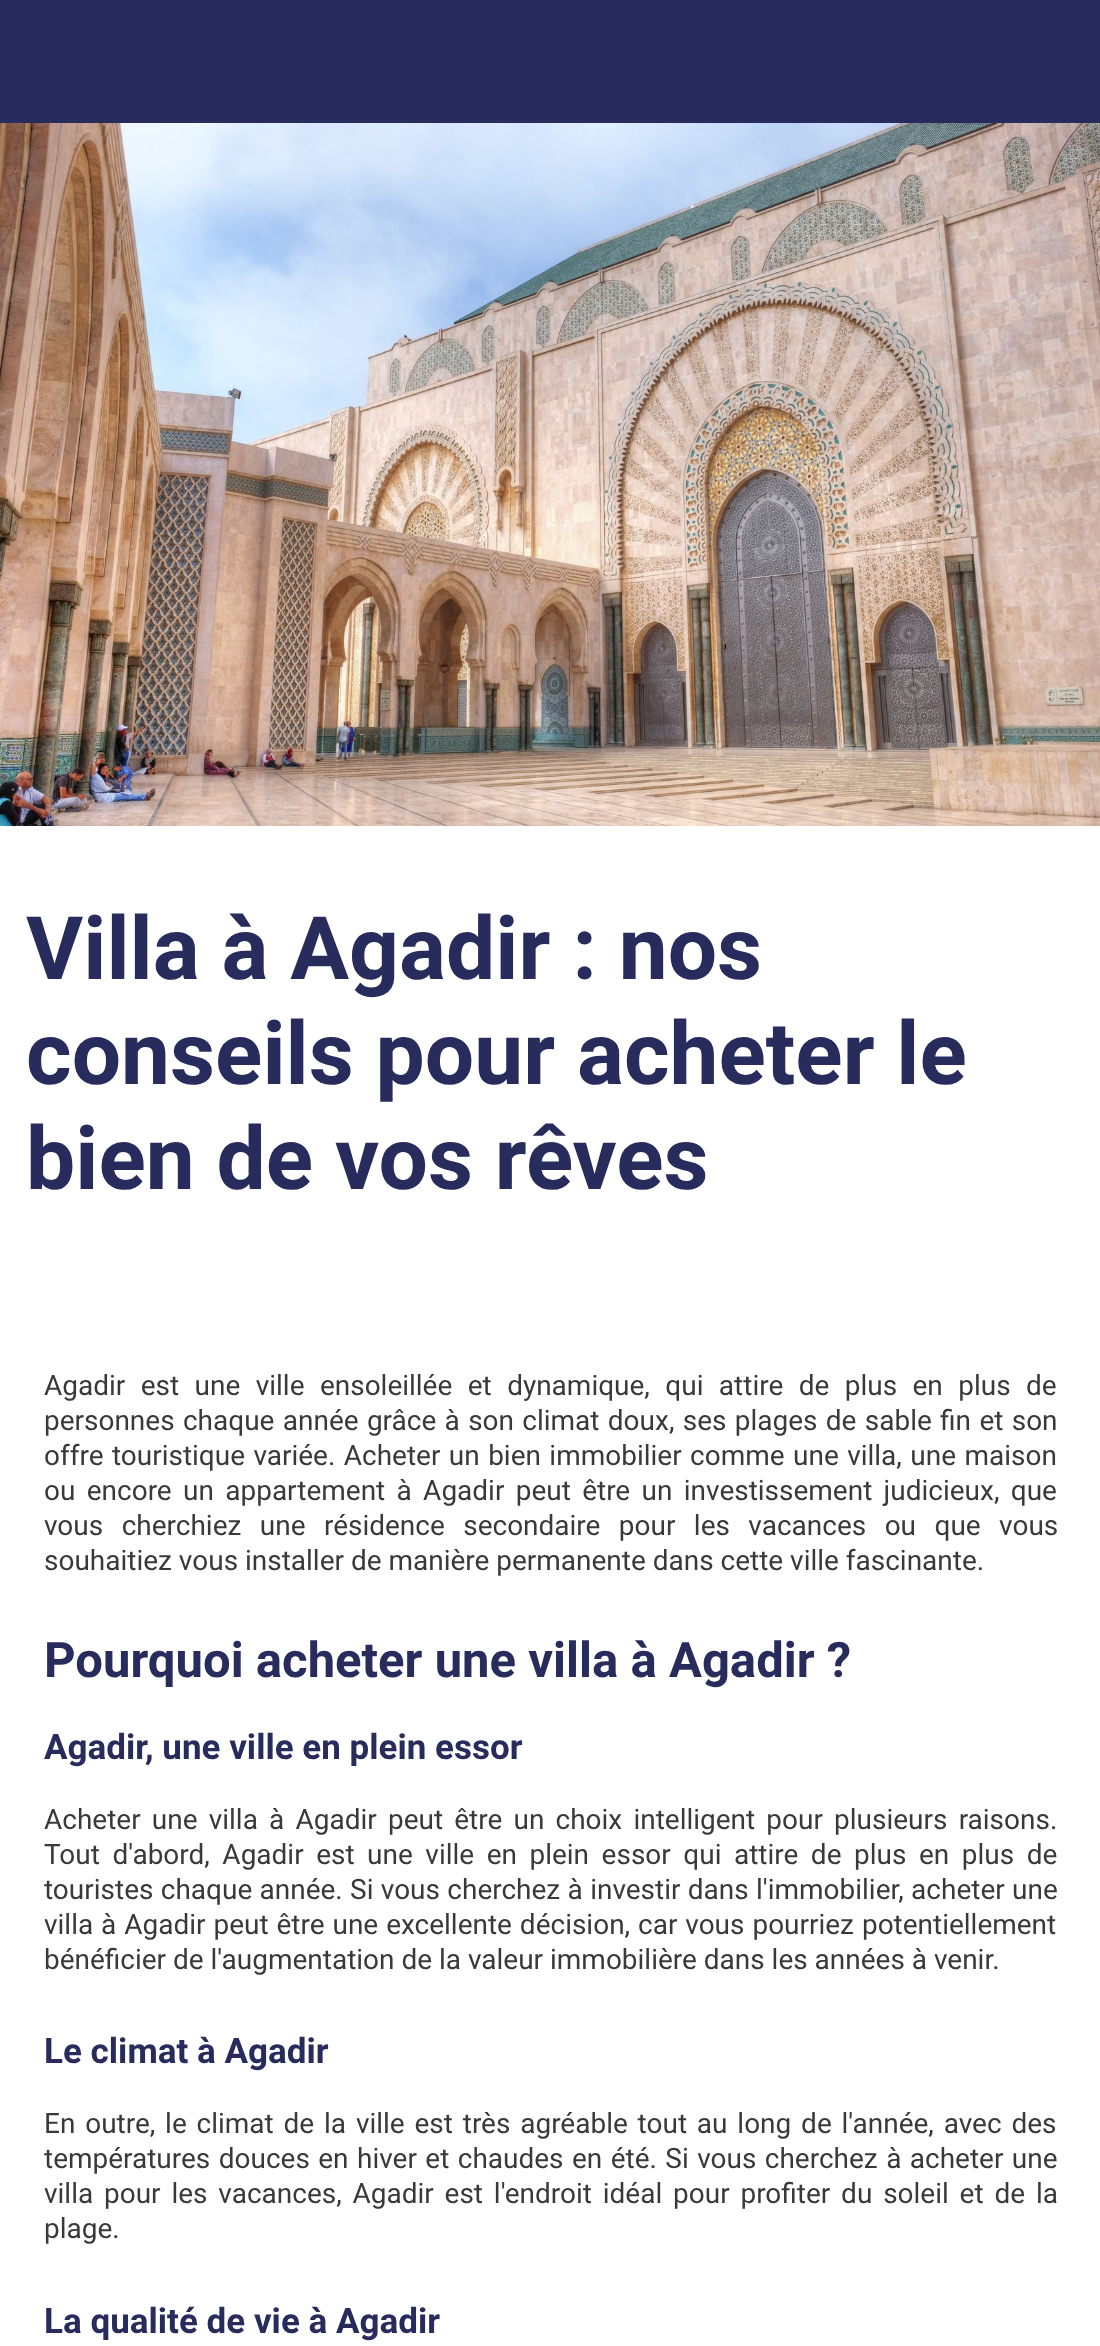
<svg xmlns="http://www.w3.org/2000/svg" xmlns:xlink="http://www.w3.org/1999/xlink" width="1100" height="2346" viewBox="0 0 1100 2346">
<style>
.cls-1{font:bold 87.5px Roboto;fill:#272c5d}
.cls-2{font:28px Roboto;fill:#393939}
.cls-3{font:bold 49px Roboto;fill:#272c5d}
.cls-4{font:bold 35px Roboto;fill:#272c5d}
</style>
<rect width="100%" height="100%" fill="#ffffff"/>
<rect fill="#272c5d" x="0" y="0" width="1100" height="123"/>
<image xlink:href="image0.png" x="0" y="123" width="1100" height="703"/>
<text class="cls-1"><tspan x="26" y="979">Villa à Agadir : nos</tspan><tspan x="26" y="1084">conseils pour acheter le</tspan><tspan x="26" y="1189">bien de vos rêves</tspan></text>
<text class="cls-2"><tspan x="44" y="1395" word-spacing="8.5">Agadir est une ville ensoleillée et dynamique, qui attire de plus en plus de</tspan><tspan x="44" y="1430" word-spacing="1.4">personnes chaque année grâce à son climat doux, ses plages de sable fin et son</tspan><tspan x="44" y="1465" word-spacing="1.5">offre touristique variée. Acheter un bien immobilier comme une villa, une maison</tspan><tspan x="44" y="1500" word-spacing="4.4">ou encore un appartement à Agadir peut être un investissement judicieux, que</tspan><tspan x="44" y="1535" word-spacing="11.5">vous cherchiez une résidence secondaire pour les vacances ou que vous</tspan><tspan x="44" y="1570">souhaitiez vous installer de manière permanente dans cette ville fascinante.</tspan></text>
<text class="cls-3" x="44" y="1677">Pourquoi acheter une villa à Agadir ?</text>
<text class="cls-4" x="44" y="1759">Agadir, une ville en plein essor</text>
<text class="cls-2"><tspan x="44" y="1829" word-spacing="4.25">Acheter une villa à Agadir peut être un choix intelligent pour plusieurs raisons.</tspan><tspan x="44" y="1864" word-spacing="5.6">Tout d'abord, Agadir est une ville en plein essor qui attire de plus en plus de</tspan><tspan x="44" y="1899" word-spacing="0.4">touristes chaque année. Si vous cherchez à investir dans l'immobilier, acheter une</tspan><tspan x="44" y="1934" word-spacing="1">villa à Agadir peut être une excellente décision, car vous pourriez potentiellement</tspan><tspan x="44" y="1969">bénéficier de l'augmentation de la valeur immobilière dans les années à venir.</tspan></text>
<text class="cls-4" x="44" y="2063">Le climat à Agadir</text>
<text class="cls-2"><tspan x="44" y="2133" word-spacing="2.9">En outre, le climat de la ville est très agréable tout au long de l'année, avec des</tspan><tspan x="44" y="2168" word-spacing="1.5">températures douces en hiver et chaudes en été. Si vous cherchez à acheter une</tspan><tspan x="44" y="2203" word-spacing="3.9">villa pour les vacances, Agadir est l'endroit idéal pour profiter du soleil et de la</tspan><tspan x="44" y="2238">plage.</tspan></text>
<text class="cls-4" x="44" y="2333">La qualité de vie à Agadir</text>
</svg>
